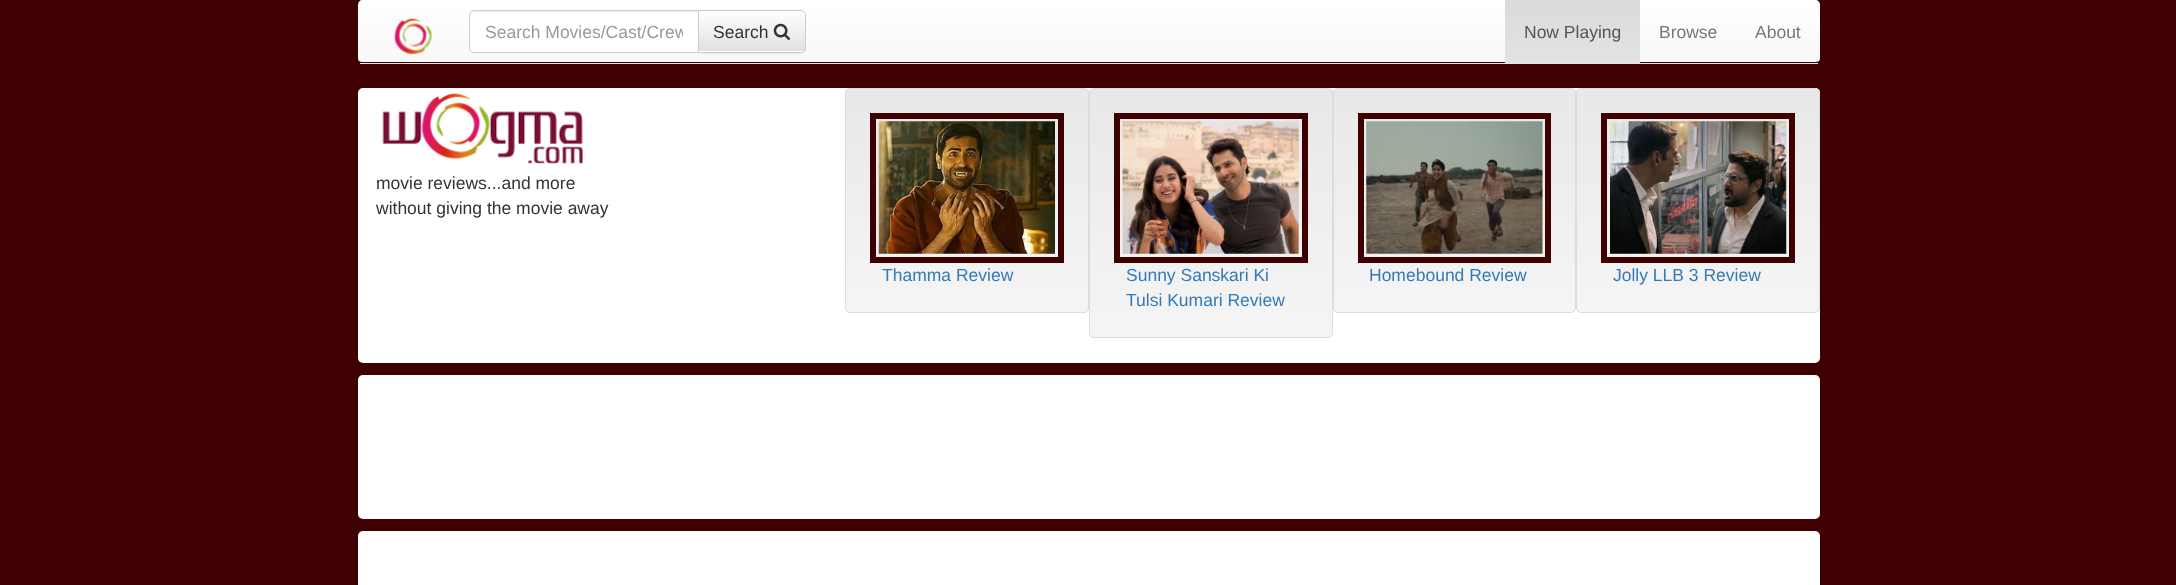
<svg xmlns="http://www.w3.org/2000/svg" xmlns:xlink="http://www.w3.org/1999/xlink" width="2176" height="585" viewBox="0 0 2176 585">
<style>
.cls-1{font:17.5px Liberation Sans;fill:#999999}
.cls-2{font:17.5px Liberation Sans;fill:#333333}
.cls-3{font:17.5px Liberation Sans;fill:#555555}
.cls-4{font:17.5px Liberation Sans;fill:#777777}
.cls-5{font:17.5px Liberation Sans;fill:#337ab7}
</style>
<defs>
<linearGradient id="g1" gradientUnits="userSpaceOnUse" x1="1089" y1="0" x2="1089" y2="63"><stop offset="0" stop-color="#ffffff"/><stop offset="1" stop-color="#f8f8f8"/></linearGradient>
<clipPath id="clip1"><path d="M698 10H801C804 10 806 12 806 15V48C806 51 804 53 801 53H698Z"/></clipPath>
<linearGradient id="g2" gradientUnits="userSpaceOnUse" x1="752" y1="11" x2="752" y2="51"><stop offset="0" stop-color="#ffffff"/><stop offset="1" stop-color="#e0e0e0"/></linearGradient>
<linearGradient id="g3" gradientUnits="userSpaceOnUse" x1="1573" y1="0" x2="1573" y2="63"><stop offset="0" stop-color="#dbdbdb"/><stop offset="1" stop-color="#e2e2e2"/></linearGradient>
<clipPath id="clip2"><rect x="845" y="88" width="244" height="225" rx="5"/></clipPath>
<linearGradient id="g4" gradientUnits="userSpaceOnUse" x1="967" y1="89" x2="967" y2="311"><stop offset="0" stop-color="#e8e8e8"/><stop offset="1" stop-color="#f5f5f5"/></linearGradient>
<clipPath id="clip3"><rect x="1089" y="88" width="244" height="250" rx="5"/></clipPath>
<linearGradient id="g5" gradientUnits="userSpaceOnUse" x1="1211" y1="89" x2="1211" y2="336"><stop offset="0" stop-color="#e8e8e8"/><stop offset="1" stop-color="#f5f5f5"/></linearGradient>
<clipPath id="clip4"><rect x="1333" y="88" width="243" height="225" rx="5"/></clipPath>
<linearGradient id="g6" gradientUnits="userSpaceOnUse" x1="1454" y1="89" x2="1454" y2="311"><stop offset="0" stop-color="#e8e8e8"/><stop offset="1" stop-color="#f5f5f5"/></linearGradient>
<clipPath id="clip5"><rect x="1576" y="88" width="244" height="225" rx="5"/></clipPath>
<linearGradient id="g7" gradientUnits="userSpaceOnUse" x1="1698" y1="89" x2="1698" y2="311"><stop offset="0" stop-color="#e8e8e8"/><stop offset="1" stop-color="#f5f5f5"/></linearGradient>
<clipPath id="clip6"><rect x="485" y="21" width="198" height="20"/></clipPath>
</defs>
<rect width="100%" height="100%" fill="#3f0002"/>
<path fill="url(#g1)" d="M362 0H1815C1818 0 1820 2 1820 5V59C1820 61 1818 62 1815 62H362C360 62 358 61 358 59V5C358 2 360 0 362 0Z"/>
<path fill="#ffffff" fill-opacity="0.15" d="M362 1H1815C1818 1 1820 3 1820 6V5C1820 2 1818 0 1815 0H362C360 0 358 2 358 5V59V60V15C358 13 356 1 362 1Z"/>
<rect fill="#e7e7e7" x="360" y="63" width="1458" height="1"/>
<image xlink:href="image0.png" x="394" y="18" width="38" height="36"/>
<rect fill="#000000" fill-opacity="0.07" filter="blur(0.5px)" x="698" y="11" width="108" height="43" rx="5"/>
<path fill="#ffffff" d="M698 10H801C804 10 806 12 806 15V48C806 51 804 53 801 53H698Z"/>
<g clip-path="url(#clip1)">
<rect fill="url(#g2)" x="699" y="11" width="107" height="40"/>
</g>
<path fill="none" stroke="#cccccc" d="M698.5 10.5H801C803.5 10.5 805.5 12.5 805.5 15V48C805.5 50.5 803.5 52.5 801 52.5H698.5Z"/>
<path fill="#ffffff" d="M474 10H699V53H474C471 53 469 51 469 48V15C469 12 471 10 474 10Z"/>
<path fill="#ececec" d="M474 12H698V11H474C471 11 470 13 470 16C470 14 472 12 474 12Z"/>
<path fill="none" stroke="#cccccc" d="M474 10.5H698.5V52.5H474C471.5 52.5 469.5 50.5 469.5 48V15C469.5 12.5 471.5 10.5 474 10.5Z"/>
<image xlink:href="image1.png" x="773" y="23" width="17" height="17"/>
<rect fill="url(#g3)" x="1505" y="0" width="135" height="63"/>
<rect fill="#ffffff" x="358" y="88" width="1462" height="275" rx="5"/>
<image xlink:href="image2.png" x="382" y="93" width="201" height="71"/>
<rect fill="#f5f5f5" x="845" y="88" width="244" height="225" rx="5"/>
<g clip-path="url(#clip2)">
<rect fill="url(#g4)" x="845" y="89" width="244" height="222"/>
</g>
<rect fill="none" stroke="#dcdcdc" x="845.5" y="88.5" width="243" height="224" rx="4.5"/>
<rect fill="none" stroke="#3f0002" stroke-width="6" x="873" y="116" width="188" height="144"/>
<image xlink:href="image3.png" x="878" y="121" width="177" height="133"/>
<rect fill="#f5f5f5" x="1089" y="88" width="244" height="250" rx="5"/>
<g clip-path="url(#clip3)">
<rect fill="url(#g5)" x="1089" y="89" width="244" height="247"/>
</g>
<rect fill="none" stroke="#dcdcdc" x="1089.5" y="88.5" width="243" height="249" rx="4.5"/>
<rect fill="none" stroke="#3f0002" stroke-width="6" x="1117" y="116" width="188" height="144"/>
<image xlink:href="image4.png" x="1122" y="121" width="177" height="133"/>
<rect fill="#f5f5f5" x="1333" y="88" width="243" height="225" rx="5"/>
<g clip-path="url(#clip4)">
<rect fill="url(#g6)" x="1333" y="89" width="243" height="222"/>
</g>
<rect fill="none" stroke="#dcdcdc" x="1333.5" y="88.5" width="242" height="224" rx="4.5"/>
<rect fill="none" stroke="#3f0002" stroke-width="6" x="1361" y="116" width="187" height="144"/>
<image xlink:href="image5.png" x="1366" y="121" width="177" height="133"/>
<rect fill="#f5f5f5" x="1576" y="88" width="244" height="225" rx="5"/>
<g clip-path="url(#clip5)">
<rect fill="url(#g7)" x="1576" y="89" width="244" height="222"/>
</g>
<rect fill="none" stroke="#dcdcdc" x="1576.5" y="88.5" width="243" height="224" rx="4.5"/>
<rect fill="none" stroke="#3f0002" stroke-width="6" x="1604" y="116" width="188" height="144"/>
<image xlink:href="image6.png" x="1610" y="121" width="177" height="133"/>
<rect fill="#ffffff" x="358" y="375" width="1462" height="144" rx="5"/>
<rect fill="#ffffff" x="358" y="531" width="1462" height="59" rx="5"/>
<g clip-path="url(#clip6)">
<text class="cls-1" x="485" y="38">Search Movies/Cast/Crew</text>
</g>
<text class="cls-2" x="713" y="38">Search</text>
<text class="cls-3" x="1524" y="38">Now Playing</text>
<text class="cls-4" x="1659" y="38">Browse</text>
<text class="cls-4" x="1755" y="38">About</text>
<text class="cls-2"><tspan x="376" y="189">movie reviews...and more</tspan><tspan x="376" y="214">without giving the movie away</tspan></text>
<text class="cls-5" x="882" y="281">Thamma Review</text>
<text class="cls-5"><tspan x="1126" y="281">Sunny Sanskari Ki</tspan><tspan x="1126" y="306">Tulsi Kumari Review</tspan></text>
<text class="cls-5" x="1369" y="281">Homebound Review</text>
<text class="cls-5" x="1613" y="281">Jolly LLB 3 Review</text>
</svg>
